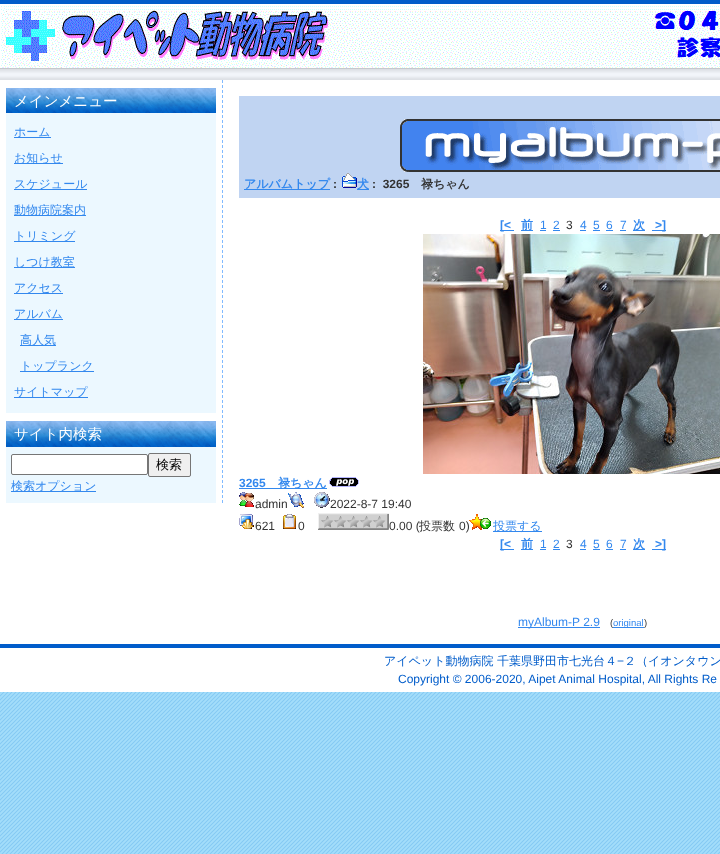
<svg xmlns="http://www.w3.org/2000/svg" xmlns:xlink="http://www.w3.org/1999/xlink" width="720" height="854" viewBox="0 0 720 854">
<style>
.cls-1{font:500 14.5px WenQuanYi Zen Hei;fill:#ffffff}
.cls-2{font:500 12px WenQuanYi Zen Hei;fill:#3388ee}
.cls-3{font:500 13px WenQuanYi Zen Hei;fill:#000000}
.cls-4{font:bold 12px WenQuanYi Zen Hei;fill:#3388ee}
.cls-5{font:bold 12px Liberation Sans;fill:#333333}
.cls-6{font:bold 12px WenQuanYi Zen Hei;fill:#333333}
.cls-7{font:bold 12px Liberation Sans;fill:#3388ee}
.cls-8{font:12px Liberation Sans;fill:#3388ee}
.cls-9{font:12px Liberation Sans;fill:#333333}
.cls-10{font:500 12px WenQuanYi Zen Hei;fill:#333333}
.cls-11{font:9.5px Liberation Sans;fill:#333333}
.cls-12{font:9.5px Liberation Sans;fill:#3388ee}
.cls-13{font:500 12px WenQuanYi Zen Hei;fill:#005cca}
.cls-14{font:12px Liberation Sans;fill:#005cca}
</style>
<rect width="100%" height="100%" fill="#ffffff"/>
<image xlink:href="image0.png" x="0" y="692" width="720" height="162"/>
<rect fill="#005cca" x="0" y="0" width="720" height="4"/>
<image xlink:href="image1.png" x="1" y="6" width="719" height="62"/>
<image xlink:href="image2.png" x="0" y="68" width="720" height="12"/>
<path fill="none" stroke="#81baff" stroke-dasharray="3 2" d="M222.5 80V503"/>
<rect fill="#ecf8ff" x="6" y="113" width="210" height="300"/>
<image xlink:href="image3.png" x="6" y="88" width="210" height="25"/>
<rect fill="#3388ee" x="14" y="137" width="37" height="1"/>
<rect fill="#3388ee" x="14" y="163" width="49" height="1"/>
<rect fill="#3388ee" x="14" y="189" width="73" height="1"/>
<rect fill="#3388ee" x="14" y="215" width="72" height="1"/>
<rect fill="#3388ee" x="14" y="241" width="61" height="1"/>
<rect fill="#3388ee" x="14" y="267" width="61" height="1"/>
<rect fill="#3388ee" x="14" y="293" width="49" height="1"/>
<rect fill="#3388ee" x="14" y="319" width="49" height="1"/>
<rect fill="#3388ee" x="20" y="345" width="36" height="1"/>
<rect fill="#3388ee" x="20" y="371" width="74" height="1"/>
<rect fill="#3388ee" x="14" y="397" width="74" height="1"/>
<rect fill="#ecf8ff" x="6" y="447" width="210" height="56"/>
<image xlink:href="image4.png" x="6" y="421" width="210" height="26"/>
<rect fill="#ffffff" stroke="#767676" x="11.5" y="454.5" width="136" height="20" rx="1.5"/>
<rect fill="#efefef" stroke="#767676" x="148.5" y="453.5" width="42" height="23" rx="1.5"/>
<rect fill="#3388ee" x="11" y="491" width="85" height="1"/>
<rect fill="#c0d4f2" x="239" y="96" width="481" height="102"/>
<image xlink:href="image5.png" x="400" y="119" width="320" height="53"/>
<rect fill="#3388ee" x="244" y="189" width="86" height="1"/>
<image xlink:href="image6.png" x="342" y="173" width="15" height="15"/>
<rect fill="#3388ee" x="357" y="189" width="12" height="1"/>
<rect fill="#3388ee" x="500" y="230" width="14" height="1"/>
<rect fill="#3388ee" x="521" y="230" width="12" height="1"/>
<rect fill="#3388ee" x="540" y="230" width="6" height="1"/>
<rect fill="#3388ee" x="553" y="230" width="7" height="1"/>
<rect fill="#3388ee" x="580" y="230" width="6" height="1"/>
<rect fill="#3388ee" x="593" y="230" width="7" height="1"/>
<rect fill="#3388ee" x="606" y="230" width="7" height="1"/>
<rect fill="#3388ee" x="620" y="230" width="6" height="1"/>
<rect fill="#3388ee" x="633" y="230" width="12" height="1"/>
<rect fill="#3388ee" x="652" y="230" width="14" height="1"/>
<image xlink:href="image7.png" x="423" y="234" width="297" height="240"/>
<rect fill="#3388ee" x="239" y="488" width="88" height="1"/>
<image xlink:href="image8.png" x="329" y="477" width="30" height="10"/>
<image xlink:href="image9.png" x="239" y="492" width="15" height="15"/>
<image xlink:href="image10.png" x="288" y="492" width="16" height="16"/>
<image xlink:href="image11.png" x="314" y="492" width="16" height="16"/>
<image xlink:href="image12.png" x="239" y="514" width="15" height="15"/>
<image xlink:href="image13.png" x="283" y="514" width="13" height="15"/>
<image xlink:href="image14.png" x="318" y="513" width="71" height="17"/>
<image xlink:href="image15.png" x="469" y="514" width="22" height="16"/>
<rect fill="#3388ee" x="493" y="531" width="49" height="1"/>
<rect fill="#3388ee" x="500" y="549" width="14" height="1"/>
<rect fill="#3388ee" x="521" y="549" width="12" height="1"/>
<rect fill="#3388ee" x="540" y="549" width="6" height="1"/>
<rect fill="#3388ee" x="553" y="549" width="7" height="1"/>
<rect fill="#3388ee" x="580" y="549" width="6" height="1"/>
<rect fill="#3388ee" x="593" y="549" width="7" height="1"/>
<rect fill="#3388ee" x="606" y="549" width="7" height="1"/>
<rect fill="#3388ee" x="620" y="549" width="6" height="1"/>
<rect fill="#3388ee" x="633" y="549" width="12" height="1"/>
<rect fill="#3388ee" x="652" y="549" width="14" height="1"/>
<rect fill="#3388ee" x="518" y="627" width="82" height="1"/>
<rect fill="#005cca" x="0" y="644" width="720" height="4"/>
<text class="cls-1" x="14" y="106">メインメニュー</text>
<text class="cls-2" x="14" y="136">ホーム</text>
<text class="cls-2" x="14" y="162">お知らせ</text>
<text class="cls-2" x="14" y="188">スケジュール</text>
<text class="cls-2" x="14" y="214">動物病院案内</text>
<text class="cls-2" x="14" y="240">トリミング</text>
<text class="cls-2" x="14" y="266">しつけ教室</text>
<text class="cls-2" x="14" y="292">アクセス</text>
<text class="cls-2" x="14" y="318">アルバム</text>
<text class="cls-2" x="20" y="344">高人気</text>
<text class="cls-2" x="20" y="370">トップランク</text>
<text class="cls-2" x="14" y="396">サイトマップ</text>
<text class="cls-1" x="14" y="439">サイト内検索</text>
<text class="cls-3" x="156" y="469">検索</text>
<text class="cls-2" x="11" y="490">検索オプション</text>
<text class="cls-4" x="244" y="188">アルバムトップ</text>
<text class="cls-5" x="333" y="188">:</text>
<text class="cls-4" x="357" y="188">犬</text>
<text class="cls-5" xml:space="preserve" x="372" y="188">:  3265</text>
<text class="cls-6" x="421" y="188">禄ちゃん</text>
<text class="cls-7" x="500" y="229">[&lt;</text>
<text class="cls-4" x="521" y="229">前</text>
<text class="cls-8" x="540" y="229">1</text>
<text class="cls-8" x="553" y="229">2</text>
<text class="cls-9" x="566" y="229">3</text>
<text class="cls-8" x="580" y="229">4</text>
<text class="cls-8" x="593" y="229">5</text>
<text class="cls-8" x="606" y="229">6</text>
<text class="cls-8" x="620" y="229">7</text>
<text class="cls-4" x="633" y="229">次</text>
<text class="cls-7" x="655" y="229">&gt;]</text>
<text class="cls-7" x="239" y="487">3265</text>
<text class="cls-4" x="278" y="487">禄ちゃん</text>
<text class="cls-9" x="255" y="508">admin</text>
<text class="cls-9" x="330" y="508">2022-8-7 19:40</text>
<text class="cls-9" x="255" y="530">621</text>
<text class="cls-9" x="298" y="530">0</text>
<text class="cls-9" x="389" y="530">0.00 (</text>
<text class="cls-10" x="419" y="530">投票数</text>
<text class="cls-9" x="459" y="530">0)</text>
<text class="cls-2" x="493" y="530">投票する</text>
<text class="cls-7" x="500" y="548">[&lt;</text>
<text class="cls-4" x="521" y="548">前</text>
<text class="cls-8" x="540" y="548">1</text>
<text class="cls-8" x="553" y="548">2</text>
<text class="cls-9" x="566" y="548">3</text>
<text class="cls-8" x="580" y="548">4</text>
<text class="cls-8" x="593" y="548">5</text>
<text class="cls-8" x="606" y="548">6</text>
<text class="cls-8" x="620" y="548">7</text>
<text class="cls-4" x="633" y="548">次</text>
<text class="cls-7" x="655" y="548">&gt;]</text>
<text class="cls-8" x="518" y="626">myAlbum-P 2.9</text>
<text class="cls-11" x="610" y="626">(</text>
<rect fill="#3388ee" x="613" y="627" width="31" height="1"/>
<text class="cls-12" x="613" y="626">original</text>
<text class="cls-11" x="644" y="626">)</text>
<text class="cls-13" x="384" y="665">アイペット動物病院 千葉県野田市七光台４</text>
<text class="cls-14" x="617" y="665">−</text>
<text class="cls-13" x="624" y="665">２（イオンタウン</text>
<text class="cls-14" x="398" y="683">Copyright © 2006-2020, Aipet Animal Hospital, All Rights Re</text>
</svg>
